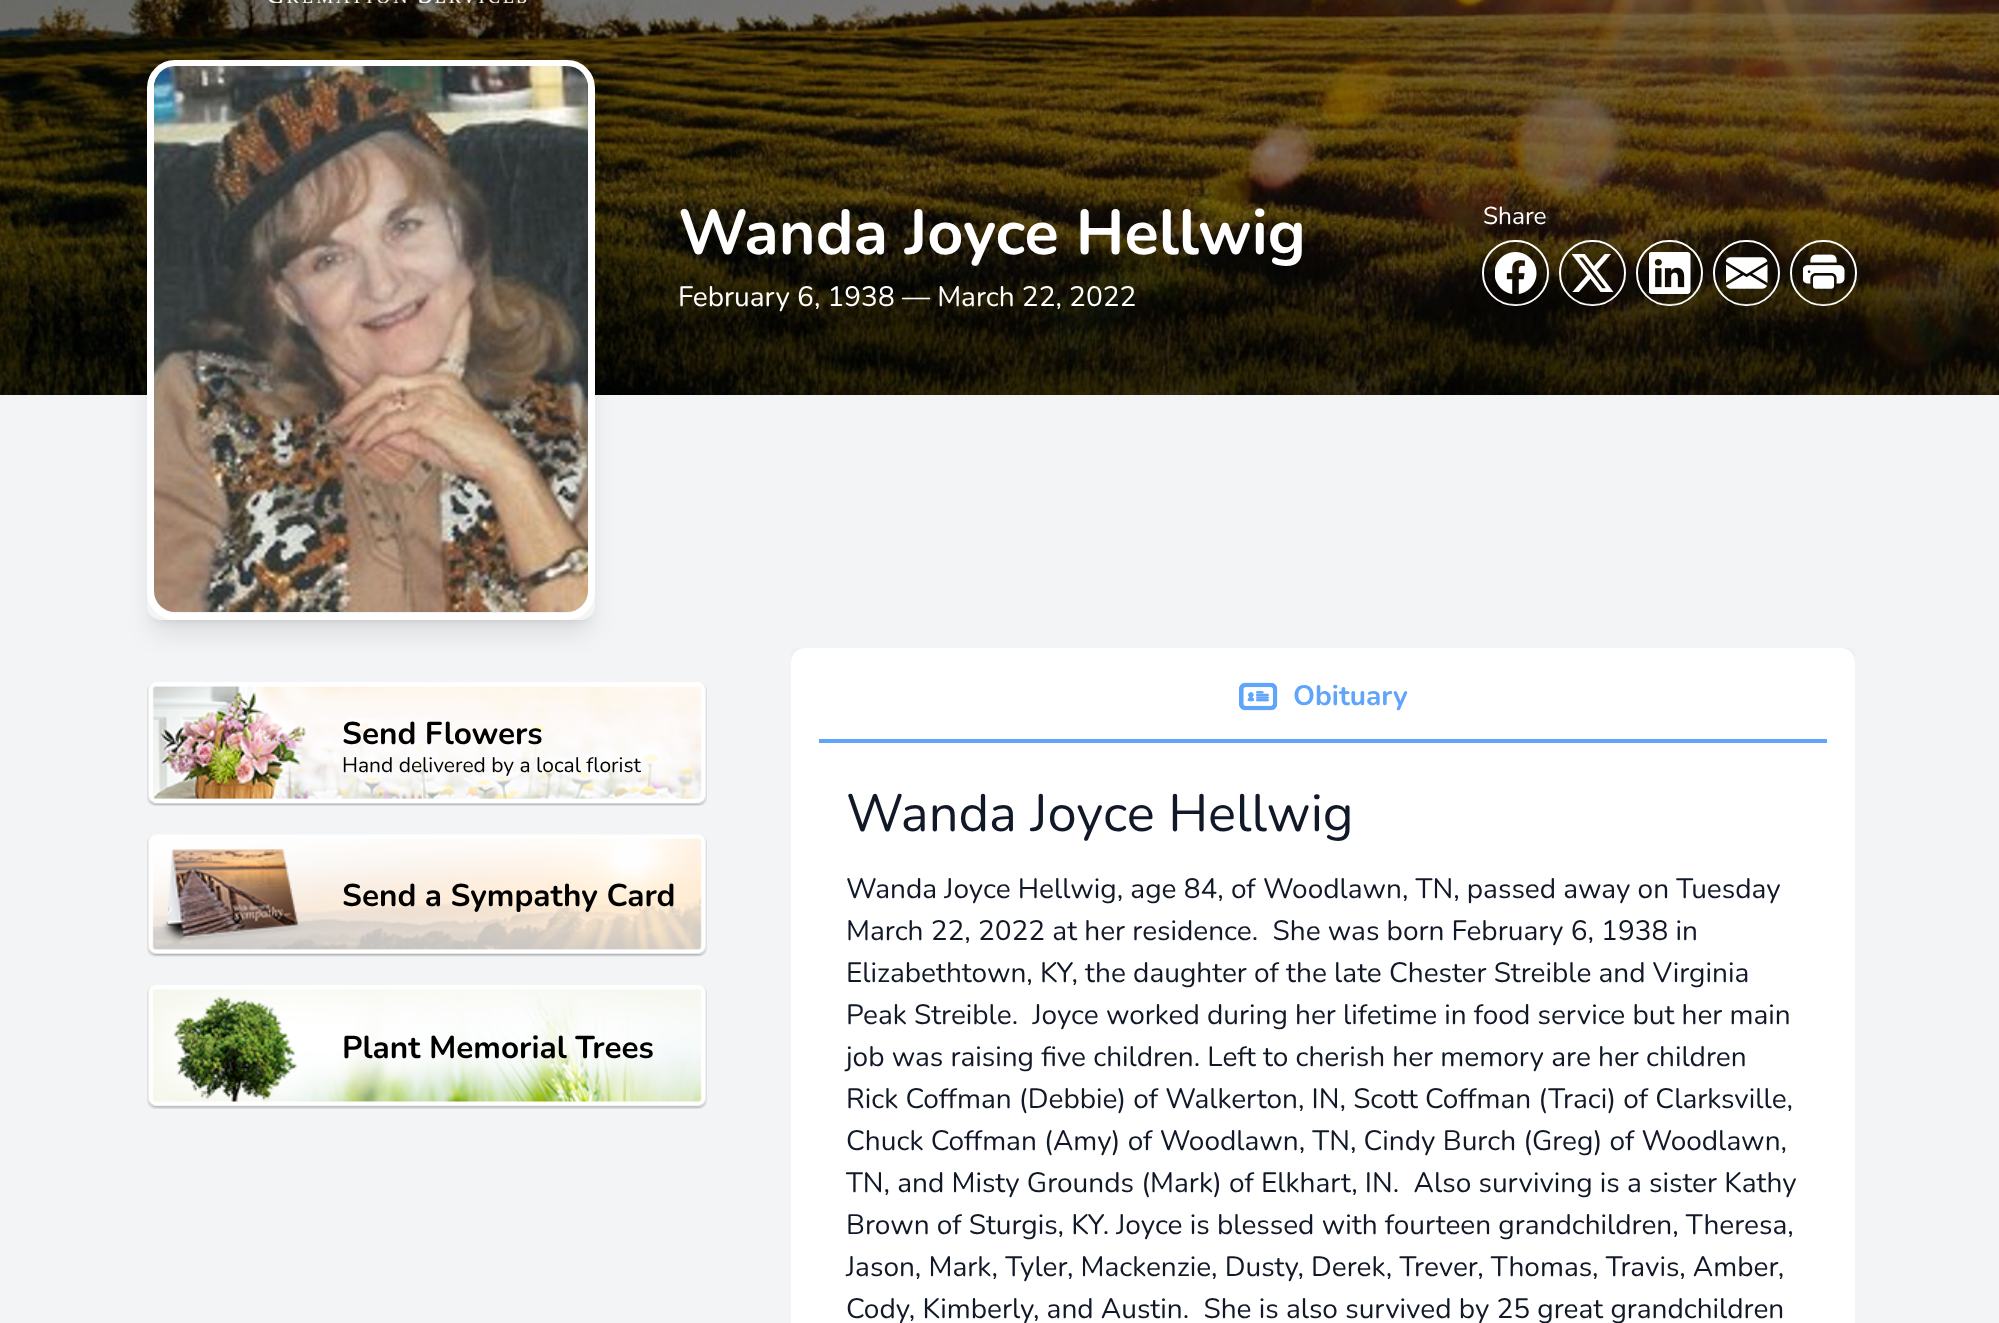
<svg xmlns="http://www.w3.org/2000/svg" xmlns:xlink="http://www.w3.org/1999/xlink" width="1999" height="1323" viewBox="0 0 1999 1323">
<style>
.cls-1{font:bold 63px Nunito;fill:#ffffff}
.cls-2{font:28px Nunito;fill:#ffffff}
.cls-3{font:24.5px Nunito;fill:#ffffff}
.cls-4{font:bold 31.5px Nunito;fill:#000000}
.cls-5{font:21px Nunito;fill:#000000}
.cls-6{font:bold 28px Nunito;fill:#60a5fa}
.cls-7{font:52.5px Nunito;fill:#111827}
.cls-8{font:28px Nunito;fill:#111827}
</style>
<defs>
<clipPath id="clip1"><path d="M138 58H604V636H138ZM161 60H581C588.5 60 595 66.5 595 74V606C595 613.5 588.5 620 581 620H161C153.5 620 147 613.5 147 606V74C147 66.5 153.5 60 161 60Z" clip-rule="evenodd"/></clipPath>
<clipPath id="clip2"><path d="M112 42H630V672H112ZM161 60H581C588.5 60 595 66.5 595 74V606C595 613.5 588.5 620 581 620H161C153.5 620 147 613.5 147 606V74C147 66.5 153.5 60 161 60Z" clip-rule="evenodd"/></clipPath>
<clipPath id="clip3"><rect x="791" y="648" width="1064" height="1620"/></clipPath>
</defs>
<rect width="100%" height="100%" fill="#f3f4f6"/>
<image xlink:href="image0.png" x="0" y="0" width="1999" height="395"/>
<image xlink:href="image1.png" x="268" y="0" width="259" height="3"/>
<g clip-path="url(#clip1)">
<rect fill="#000000" fill-opacity="0.1" filter="blur(5px)" x="154" y="74" width="434" height="546" rx="7"/>
</g>
<g clip-path="url(#clip2)">
<rect fill="#000000" fill-opacity="0.1" filter="blur(13px)" x="152" y="82" width="438" height="550" rx="9"/>
</g>
<rect fill="none" stroke="#ffffff" stroke-width="7" x="150.5" y="63.5" width="441" height="553" rx="24.5"/>
<image xlink:href="image2.png" x="154" y="66" width="434" height="546"/>
<rect fill="none" stroke="#ffffff" stroke-width="2" x="1483" y="241" width="65" height="64" rx="32"/>
<circle fill="#000000" fill-opacity="0.2" cx="1515.5" cy="273.5" r="31.5"/>
<image xlink:href="image3.png" x="1495" y="252" width="42" height="42"/>
<rect fill="none" stroke="#ffffff" stroke-width="2" x="1560" y="241" width="65" height="64" rx="32"/>
<circle fill="#000000" fill-opacity="0.2" cx="1592.5" cy="273.5" r="31.5"/>
<image xlink:href="image4.png" x="1572" y="254" width="42" height="38"/>
<rect fill="none" stroke="#ffffff" stroke-width="2" x="1637" y="241" width="65" height="64" rx="32"/>
<circle fill="#000000" fill-opacity="0.2" cx="1669.5" cy="273.5" r="31.5"/>
<image xlink:href="image5.png" x="1649" y="252" width="42" height="42"/>
<rect fill="none" stroke="#ffffff" stroke-width="2" x="1714" y="241" width="65" height="64" rx="32"/>
<circle fill="#000000" fill-opacity="0.2" cx="1746.5" cy="273.5" r="31.5"/>
<image xlink:href="image6.png" x="1726" y="257" width="42" height="32"/>
<rect fill="none" stroke="#ffffff" stroke-width="2" x="1791" y="241" width="65" height="64" rx="32"/>
<circle fill="#000000" fill-opacity="0.2" cx="1823.5" cy="273.5" r="31.5"/>
<image xlink:href="image7.png" x="1803" y="254" width="42" height="35"/>
<image xlink:href="image8.png" x="147" y="682" width="560" height="124"/>
<image xlink:href="image9.png" x="147" y="834" width="560" height="123"/>
<image xlink:href="image10.png" x="147" y="985" width="560" height="124"/>
<g clip-path="url(#clip3)">
<rect fill="#000000" fill-opacity="0.1" filter="blur(2.5px)" x="791" y="649" width="1064" height="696" rx="14"/>
</g>
<rect fill="#ffffff" x="791" y="648" width="1064" height="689" rx="14"/>
<rect fill="#60a5fa" x="819" y="739" width="1008" height="4"/>
<image xlink:href="image11.png" x="1239" y="682" width="39" height="29"/>
<text class="cls-1" x="678" y="254">Wanda Joyce Hellwig</text>
<text class="cls-2" x="678" y="306">February 6, 1938 — March 22, 2022</text>
<text class="cls-3" x="1483" y="224">Share</text>
<text class="cls-4" x="342" y="744">Send Flowers</text>
<text class="cls-5" x="342" y="772">Hand delivered by a local florist</text>
<text class="cls-4" x="342" y="906">Send a Sympathy Card</text>
<text class="cls-4" x="342" y="1058">Plant Memorial Trees</text>
<text class="cls-6" x="1293" y="705">Obituary</text>
<text class="cls-7" x="846" y="831">Wanda Joyce Hellwig</text>
<text class="cls-8" xml:space="preserve"><tspan x="846" y="898">Wanda Joyce Hellwig, age 84, of Woodlawn, TN, passed away on Tuesday</tspan><tspan x="846" y="940">March 22, 2022 at her residence.  She was born February 6, 1938 in</tspan><tspan x="846" y="982">Elizabethtown, KY, the daughter of the late Chester Streible and Virginia</tspan><tspan x="846" y="1024">Peak Streible.  Joyce worked during her lifetime in food service but her main</tspan><tspan x="846" y="1066">job was raising five children. Left to cherish her memory are her children</tspan><tspan x="846" y="1108">Rick Coffman (Debbie) of Walkerton, IN, Scott Coffman (Traci) of Clarksville,</tspan><tspan x="846" y="1150">Chuck Coffman (Amy) of Woodlawn, TN, Cindy Burch (Greg) of Woodlawn,</tspan><tspan x="846" y="1192">TN, and Misty Grounds (Mark) of Elkhart, IN.  Also surviving is a sister Kathy</tspan><tspan x="846" y="1234">Brown of Sturgis, KY. Joyce is blessed with fourteen grandchildren, Theresa,</tspan><tspan x="846" y="1276">Jason, Mark, Tyler, Mackenzie, Dusty, Derek, Trever, Thomas, Travis, Amber,</tspan><tspan x="846" y="1318">Cody, Kimberly, and Austin.  She is also survived by 25 great grandchildren</tspan></text>
</svg>
